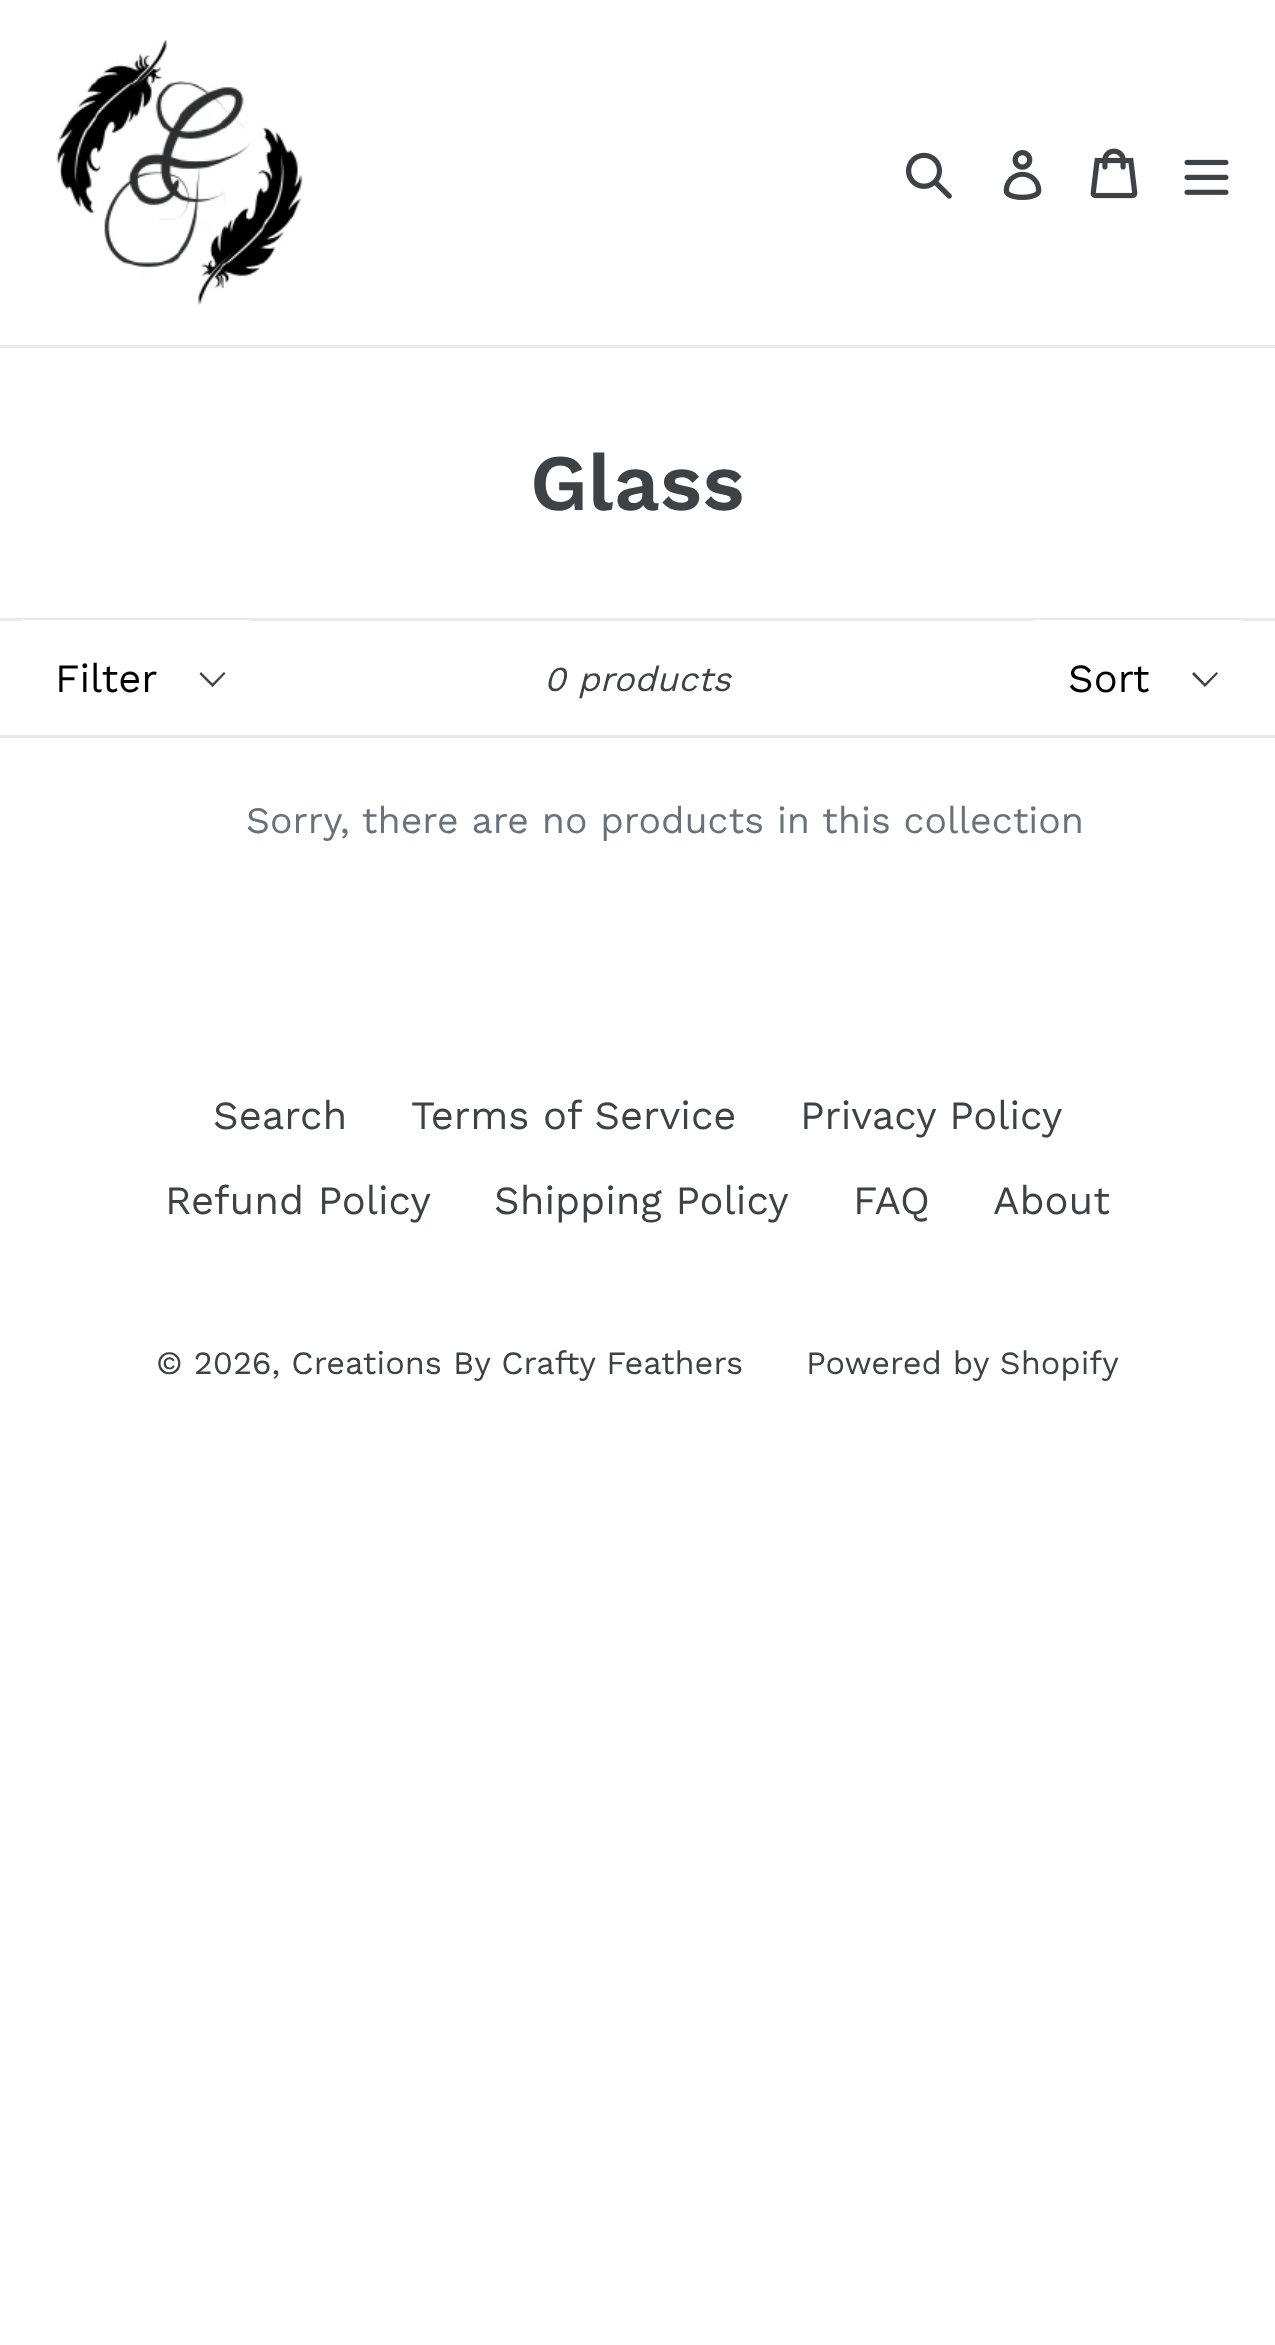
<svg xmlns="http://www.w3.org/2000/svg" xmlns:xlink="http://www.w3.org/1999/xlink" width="1275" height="2345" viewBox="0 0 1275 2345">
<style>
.cls-1{font:600 80px Work Sans;fill:#3d4246}
.cls-2{font:40px Work Sans;fill:#000000}
.cls-3{font:italic 35px Work Sans;fill:#3d4246}
.cls-4{font:37.5px Work Sans;fill:#69727b}
.cls-5{font:40px Work Sans;fill:#3d4246}
.cls-6{font:32.5px Work Sans;fill:#3d4246}
</style>
<rect width="100%" height="100%" fill="#ffffff"/>
<rect fill="#e8e9eb" x="0" y="345" width="1275" height="3"/>
<image xlink:href="image0.png" x="55" y="39" width="248" height="266"/>
<image xlink:href="image1.png" x="906" y="152" width="46" height="47"/>
<image xlink:href="image2.png" x="1003" y="150" width="39" height="50"/>
<image xlink:href="image3.png" x="1090" y="148" width="48" height="51"/>
<image xlink:href="image4.png" x="1184" y="159" width="45" height="36"/>
<rect fill="#e8e9eb" x="0" y="618" width="1275" height="3"/>
<rect fill="#e8e9eb" x="0" y="735" width="1275" height="3"/>
<rect fill="#ffffff" x="18" y="620" width="235" height="115" rx="5"/>
<path fill="#3d4246" d="M212.5 687L199.5 674L201 672L212.5 683.5L224 672L225.5 673.5Z"/>
<rect fill="#ffffff" x="1030" y="620" width="215" height="115" rx="5"/>
<path fill="#3d4246" d="M1205 687L1192 674L1194 672L1205 683.5L1216.5 672L1218 673.5Z"/>
<text class="cls-1" x="530" y="510">Glass</text>
<text class="cls-2" x="55" y="692">Filter</text>
<text class="cls-3" x="544" y="691">0 products</text>
<text class="cls-2" x="1068" y="692">Sort</text>
<text class="cls-4" x="246" y="833">Sorry, there are no products in this collection</text>
<text class="cls-5" x="213" y="1129">Search</text>
<text class="cls-5" x="411" y="1129">Terms of Service</text>
<text class="cls-5" x="800" y="1129">Privacy Policy</text>
<text class="cls-5" x="165" y="1214">Refund Policy</text>
<text class="cls-5" x="494" y="1214">Shipping Policy</text>
<text class="cls-5" x="853" y="1214">FAQ</text>
<text class="cls-5" x="993" y="1214">About</text>
<text class="cls-6" x="156" y="1374">© 2026, Creations By Crafty Feathers</text>
<text class="cls-6" x="806" y="1374">Powered by Shopify</text>
</svg>
